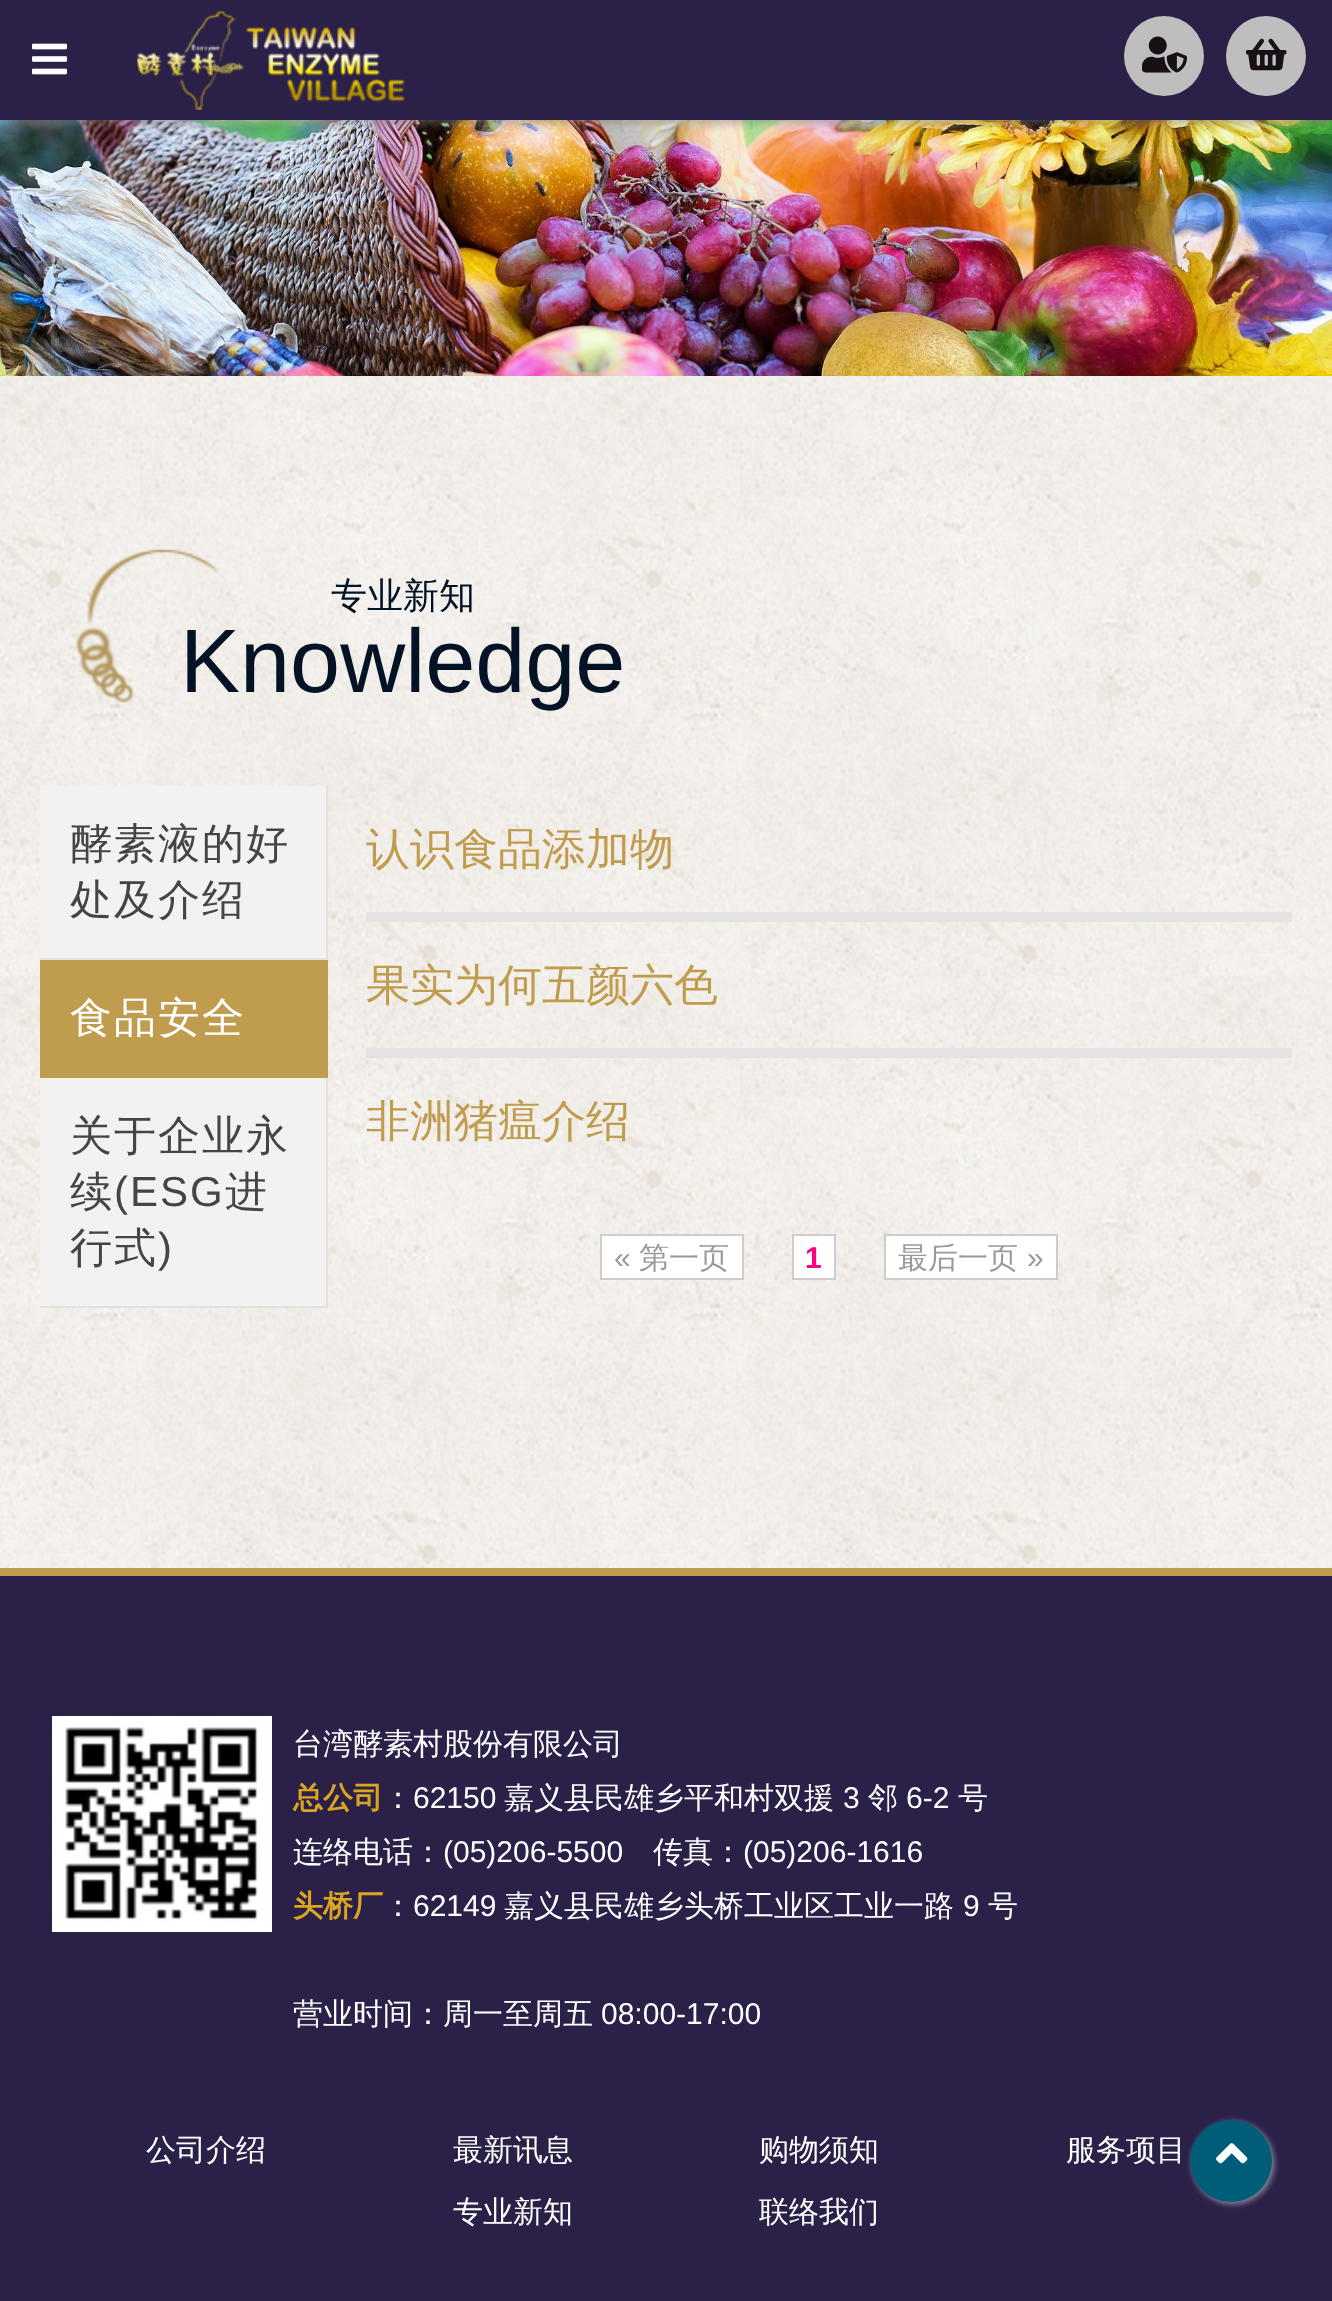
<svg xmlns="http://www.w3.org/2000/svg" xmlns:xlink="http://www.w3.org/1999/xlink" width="1332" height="2301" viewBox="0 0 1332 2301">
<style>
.cls-1{font:500 36px WenQuanYi Zen Hei;fill:#031325}
.cls-2{font:90px Liberation Sans;fill:#031325}
.cls-3{font:500 42px WenQuanYi Zen Hei;letter-spacing:2px;fill:#454545}
.cls-4{font:500 42px WenQuanYi Zen Hei;letter-spacing:2px;fill:#ffffff}
.cls-5{font:42px Liberation Sans;letter-spacing:2px;fill:#454545}
.cls-6{font:500 44px WenQuanYi Zen Hei;fill:#c09c4e}
.cls-7{font:30px Liberation Sans;fill:#9a9a9a}
.cls-8{font:500 30px WenQuanYi Zen Hei;fill:#9a9a9a}
.cls-9{font:bold 30px Liberation Sans;fill:#ff0084}
.cls-10{font:500 30px WenQuanYi Zen Hei;fill:#ffffff}
.cls-11{font:bold 30px WenQuanYi Zen Hei;fill:#daa520}
.cls-12{font:30px Liberation Sans;fill:#ffffff}
</style>
<defs>
<clipPath id="clip1"><rect x="366" y="816" width="926" height="66"/></clipPath>
</defs>
<rect width="100%" height="100%" fill="#2a2048"/>
<image xlink:href="image4.png" x="0" y="120" width="1332" height="256"/>
<rect fill="#7e7e7e" fill-opacity="0.5" filter="blur(5px)" x="0" y="4" width="1332" height="120"/>
<rect fill="#2a2048" x="0" y="0" width="1332" height="120"/>
<image xlink:href="image0.png" x="32" y="43" width="35" height="32"/>
<image xlink:href="image1.png" x="137" y="11" width="268" height="99"/>
<circle fill="#bebebe" cx="1164" cy="56" r="40"/>
<image xlink:href="image2.png" x="1142" y="36" width="45" height="37"/>
<circle fill="#bebebe" cx="1266" cy="56" r="40"/>
<image xlink:href="image3.png" x="1246" y="38" width="41" height="33"/>
<image xlink:href="image5.png" x="0" y="376" width="1332" height="1192"/>
<image xlink:href="image6.png" x="75" y="549" width="144" height="155"/>
<rect fill="#f2f2f2" x="40" y="786" width="286" height="520"/>
<rect fill="#e1e1e1" x="326" y="786" width="2" height="174"/>
<rect fill="#e1e1e1" x="40" y="958" width="288" height="2"/>
<rect fill="#c09c4e" x="40" y="960" width="288" height="118"/>
<rect fill="#e1e1e1" x="326" y="1078" width="2" height="230"/>
<rect fill="#e1e1e1" x="40" y="1306" width="288" height="2"/>
<rect fill="#e4e2e2" x="366" y="912" width="926" height="10"/>
<rect fill="#e4e2e2" x="366" y="1048" width="926" height="10"/>
<rect fill="#ffffff" stroke="#cecccc" stroke-width="2" x="601" y="1235" width="142" height="44"/>
<rect fill="#ffffff" stroke="#cecccc" stroke-width="2" x="793" y="1235" width="42" height="44"/>
<rect fill="#ffffff" stroke="#cecccc" stroke-width="2" x="885" y="1235" width="172" height="44"/>
<rect fill="#c09c4e" x="0" y="1568" width="1332" height="8"/>
<image xlink:href="image7.png" x="52" y="1716" width="220" height="216"/>
<rect fill="#ffffff" fill-opacity="0.5" filter="blur(3px)" x="1192" y="2122" width="82" height="82" rx="41"/>
<circle fill="#005d78" cx="1231" cy="2161" r="41"/>
<image xlink:href="image8.png" x="1216" y="2143" width="32" height="21"/>
<text class="cls-1" x="331" y="608">专业新知</text>
<text class="cls-2" x="180" y="692">Knowledge</text>
<text class="cls-3"><tspan x="70" y="858">酵素液的好</tspan><tspan x="70" y="914">处及介绍</tspan></text>
<text class="cls-4" x="70" y="1032">食品安全</text>
<text class="cls-3"><tspan x="70" y="1150">关于企业永</tspan><tspan x="70" y="1206">续</tspan></text>
<text class="cls-5" x="114" y="1206">(ESG</text>
<text class="cls-3" x="225" y="1206">进</text>
<text class="cls-3" x="70" y="1262">行式</text>
<text class="cls-5" x="158" y="1262">)</text>
<g clip-path="url(#clip1)">
<text class="cls-6" x="366" y="864">认识食品添加物</text>
</g>
<text class="cls-6" x="366" y="1000">果实为何五颜六色</text>
<text class="cls-6" x="366" y="1136">非洲猪瘟介绍</text>
<text class="cls-7" x="614" y="1268">«</text>
<text class="cls-8" x="639" y="1268">第一页</text>
<text class="cls-9" x="805" y="1268">1</text>
<text class="cls-8" x="898" y="1268">最后一页</text>
<text class="cls-7" x="1027" y="1268">»</text>
<text class="cls-10" x="293" y="1754">台湾酵素村股份有限公司</text>
<text class="cls-11" x="293" y="1808">总公司</text>
<text class="cls-10" x="383" y="1808">：</text>
<text class="cls-12" x="413" y="1808">62150</text>
<text class="cls-10" x="504" y="1808">嘉义县民雄乡平和村双援</text>
<text class="cls-12" x="843" y="1808">3</text>
<text class="cls-10" x="868" y="1808">邻</text>
<text class="cls-12" x="906" y="1808">6-2</text>
<text class="cls-10" x="958" y="1808">号</text>
<text class="cls-10" x="293" y="1862">连络电话：</text>
<text class="cls-12" x="443" y="1862">(05)206-5500</text>
<text class="cls-10" x="653" y="1862">传真：</text>
<text class="cls-12" x="743" y="1862">(05)206-1616</text>
<text class="cls-11" x="293" y="1916">头桥厂</text>
<text class="cls-10" x="383" y="1916">：</text>
<text class="cls-12" x="413" y="1916">62149</text>
<text class="cls-10" x="504" y="1916">嘉义县民雄乡头桥工业区工业一路</text>
<text class="cls-12" x="963" y="1916">9</text>
<text class="cls-10" x="988" y="1916">号</text>
<text class="cls-10" x="293" y="2024">营业时间：周一至周五</text>
<text class="cls-12" x="601" y="2024">08:00-17:00</text>
<text class="cls-10" x="146" y="2160">公司介绍</text>
<text class="cls-10" x="453" y="2160">最新讯息</text>
<text class="cls-10" x="759" y="2160">购物须知</text>
<text class="cls-10" x="1066" y="2160">服务项目</text>
<text class="cls-10" x="453" y="2222">专业新知</text>
<text class="cls-10" x="759" y="2222">联络我们</text>
</svg>
